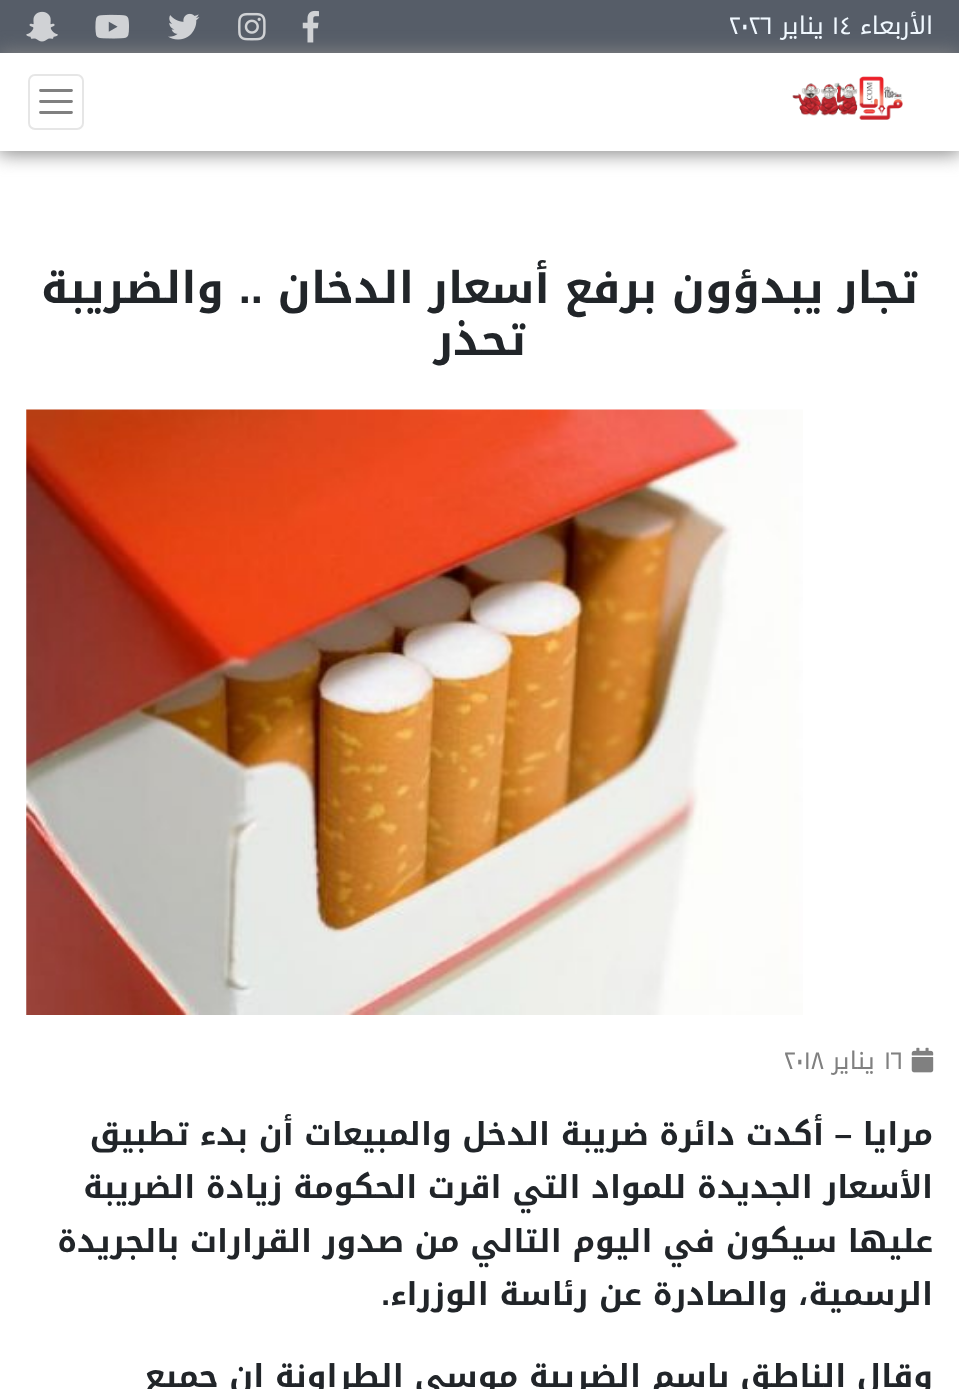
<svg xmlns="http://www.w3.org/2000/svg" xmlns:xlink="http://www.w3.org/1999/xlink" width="959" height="1389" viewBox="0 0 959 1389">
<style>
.cls-1{font:24.5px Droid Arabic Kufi;direction:rtl;fill:#f0f8ff}
.cls-2{font:24.5px Droid Arabic Kufi;fill:#f0f8ff}
.cls-3{font:bold 43.75px Droid Arabic Kufi;direction:rtl;fill:#212529}
.cls-4{font:bold 43.75px Liberation Sans;direction:rtl;fill:#212529}
.cls-5{font:24.5px Droid Arabic Kufi;fill:#808080}
.cls-6{font:24.5px Droid Arabic Kufi;direction:rtl;fill:#808080}
.cls-7{font:bold 31.5px Droid Arabic Kufi;direction:rtl;fill:#212529}
.cls-8{font:bold 31.5px Liberation Sans;direction:rtl;fill:#212529}
</style>
<defs>
<clipPath id="clip1"><path d="M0 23H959V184H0ZM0 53H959V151H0Z" clip-rule="evenodd"/></clipPath>
</defs>
<rect width="100%" height="100%" fill="#ffffff"/>
<rect fill="#565d68" x="0" y="0" width="959" height="53"/>
<g clip-path="url(#clip1)">
<rect fill="#888888" filter="blur(9.5px)" x="-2" y="53" width="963" height="101"/>
</g>
<image xlink:href="image0.png" x="302" y="10" width="17" height="33"/>
<image xlink:href="image1.png" x="238" y="12" width="28" height="29"/>
<image xlink:href="image2.png" x="168" y="13" width="32" height="27"/>
<image xlink:href="image3.png" x="95" y="14" width="34" height="25"/>
<image xlink:href="image4.png" x="26" y="11" width="32" height="31"/>
<image xlink:href="image5.png" x="792" y="76" width="111" height="44"/>
<rect fill="none" stroke="#e6e6e6" stroke-width="2" x="29" y="75" width="54" height="54" rx="6"/>
<path fill="none" stroke="#808080" stroke-width="2.8" stroke-linecap="round" d="M40.5 90.5H71.5M40.5 101.5H71.5M40.5 112.5H71.5"/>
<image xlink:href="image6.png" x="26" y="409" width="777" height="606"/>
<image xlink:href="image7.png" x="911" y="1047" width="23" height="26"/>
<text class="cls-1" x="933" y="34">الأربعاء</text>
<text class="cls-2" x="832" y="34">١٤</text>
<text class="cls-1" x="824" y="34">يناير</text>
<text class="cls-2" x="729" y="34">٢٠٢٦</text>
<text class="cls-3" x="918" y="303">تجار يبدؤون برفع أسعار الدخان</text>
<text class="cls-4" x="263" y="303">..</text>
<text class="cls-3" x="224" y="303">والضريبة</text>
<text class="cls-3" x="526" y="355">تحذر</text>
<text class="cls-5" x="884" y="1069">١٦</text>
<text class="cls-6" x="875" y="1069">يناير</text>
<text class="cls-5" x="784" y="1069">٢٠١٨</text>
<text class="cls-7" x="933" y="1145">مرايا</text>
<text class="cls-8" x="852" y="1145">–</text>
<text class="cls-7" x="824" y="1145">أكدت دائرة ضريبة الدخل والمبيعات أن بدء تطبيق</text>
<text class="cls-7"><tspan x="933" y="1198">الأسعار الجديدة للمواد التي اقرت الحكومة زيادة الضريبة</tspan><tspan x="933" y="1252">عليها سيكون في اليوم التالي من صدور القرارات بالجريدة</tspan><tspan x="933" y="1305">الرسمية، والصادرة عن رئاسة الوزراء</tspan></text>
<text class="cls-8" x="390" y="1305">.</text>
<text class="cls-7" x="933" y="1387">وقال الناطق باسم الضريبة موسى الطراونة إن جميع</text>
</svg>
